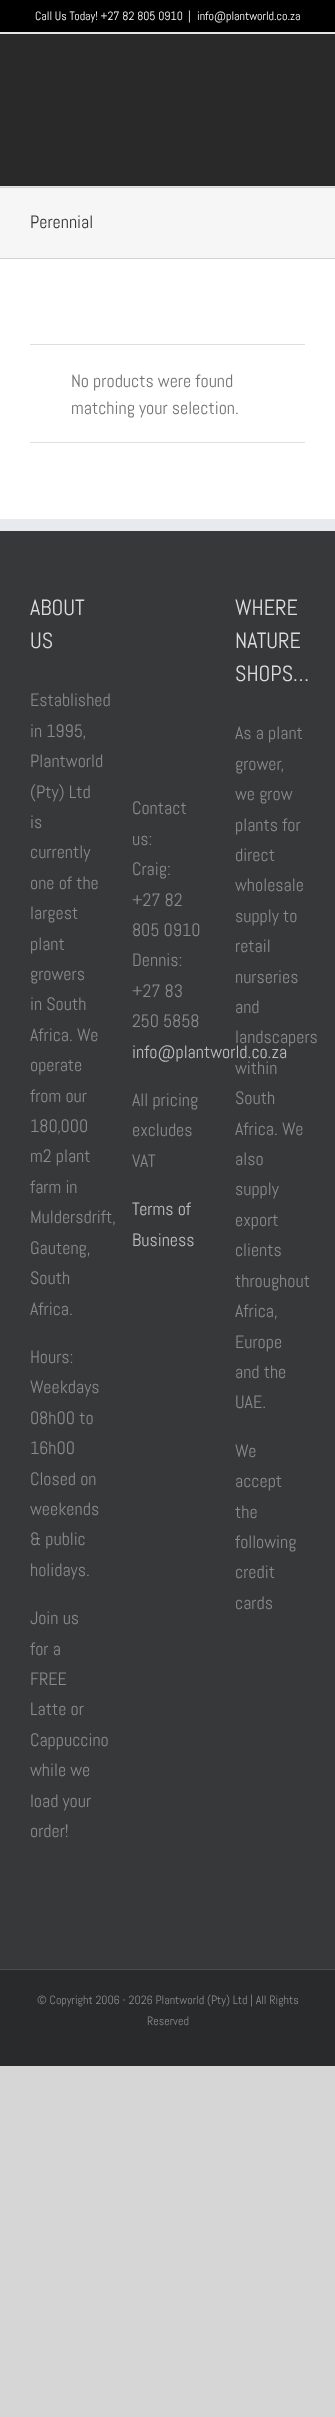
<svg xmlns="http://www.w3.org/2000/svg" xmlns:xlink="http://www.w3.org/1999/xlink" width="335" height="2417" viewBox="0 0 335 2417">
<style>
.cls-1{font:12px Abel;fill:#ffffff}
.cls-2{font:18px Abel;fill:#333333}
.cls-3{font:18px Abel;fill:#747474}
.cls-4{font:22px Abel;fill:#dddddd}
.cls-5{font:18px Abel;fill:#8c8989}
.cls-6{font:18px Abel;fill:#bfbfbf}
.cls-7{font:12px Abel;fill:#8c8989}
</style>
<rect width="100%" height="100%" fill="#d7d6d6"/>
<rect fill="#ffffff" x="0" y="259" width="335" height="260"/>
<rect fill="#000000" x="0" y="0" width="335" height="32"/>
<rect fill="#e5e5e5" x="0" y="32" width="335" height="2"/>
<rect fill="#29292a" x="0" y="34" width="335" height="152"/>
<rect fill="#e5e5e5" x="0" y="186" width="335" height="1"/>
<rect fill="#f6f6f6" x="0" y="188" width="335" height="70"/>
<rect fill="#d2d3d4" x="0" y="187" width="335" height="1"/>
<rect fill="#d2d3d4" x="0" y="258" width="335" height="1"/>
<rect fill="#e0dede" x="30" y="344" width="275" height="1"/>
<rect fill="#e0dede" x="30" y="442" width="275" height="1"/>
<rect fill="#363839" x="0" y="531" width="335" height="1438"/>
<rect fill="#e9eaee" x="0" y="519" width="335" height="12"/>
<rect fill="#282a2b" x="0" y="1970" width="335" height="96"/>
<rect fill="#4b4c4d" x="0" y="1969" width="335" height="1"/>
<text class="cls-1" x="35" y="20">Call Us Today! +27 82 805 0910</text>
<text class="cls-1" x="188" y="20">|</text>
<text class="cls-1" x="197" y="20">info@plantworld.co.za</text>
<text class="cls-2" x="30" y="228">Perennial</text>
<text class="cls-3"><tspan x="71" y="387">No products were found</tspan><tspan x="71" y="414">matching your selection.</tspan></text>
<text class="cls-4"><tspan x="30" y="615">ABOUT</tspan><tspan x="30" y="648">US</tspan></text>
<text class="cls-5"><tspan x="30" y="706">Established</tspan><tspan x="30" y="737">in 1995,</tspan><tspan x="30" y="767">Plantworld</tspan><tspan x="30" y="798">(Pty) Ltd</tspan><tspan x="30" y="828">is</tspan><tspan x="30" y="858">currently</tspan><tspan x="30" y="889">one of the</tspan><tspan x="30" y="919">largest</tspan><tspan x="30" y="950">plant</tspan><tspan x="30" y="980">growers</tspan><tspan x="30" y="1010">in South</tspan><tspan x="30" y="1041">Africa. We</tspan><tspan x="30" y="1071">operate</tspan><tspan x="30" y="1102">from our</tspan><tspan x="30" y="1132">180,000</tspan><tspan x="30" y="1162">m2 plant</tspan><tspan x="30" y="1193">farm in</tspan><tspan x="30" y="1223">Muldersdrift,</tspan><tspan x="30" y="1254">Gauteng,</tspan><tspan x="30" y="1284">South</tspan><tspan x="30" y="1315">Africa.</tspan></text>
<text class="cls-5"><tspan x="30" y="1363">Hours:</tspan><tspan x="30" y="1393">Weekdays</tspan><tspan x="30" y="1424">08h00 to</tspan><tspan x="30" y="1454">16h00</tspan><tspan x="30" y="1485">Closed on</tspan><tspan x="30" y="1515">weekends</tspan><tspan x="30" y="1545">&amp; public</tspan><tspan x="30" y="1576">holidays.</tspan></text>
<text class="cls-5"><tspan x="30" y="1624">Join us</tspan><tspan x="30" y="1655">for a</tspan><tspan x="30" y="1685">FREE</tspan><tspan x="30" y="1715">Latte or</tspan><tspan x="30" y="1746">Cappuccino</tspan><tspan x="30" y="1776">while we</tspan><tspan x="30" y="1807">load your</tspan><tspan x="30" y="1837">order!</tspan></text>
<text class="cls-4"><tspan x="235" y="615">WHERE</tspan><tspan x="235" y="648">NATURE</tspan><tspan x="235" y="681">SHOPS…</tspan></text>
<text class="cls-5"><tspan x="235" y="739">As a plant</tspan><tspan x="235" y="770">grower,</tspan><tspan x="235" y="800">we grow</tspan><tspan x="235" y="831">plants for</tspan><tspan x="235" y="861">direct</tspan><tspan x="235" y="891">wholesale</tspan><tspan x="235" y="922">supply to</tspan><tspan x="235" y="952">retail</tspan><tspan x="235" y="983">nurseries</tspan><tspan x="235" y="1013">and</tspan><tspan x="235" y="1043">landscapers</tspan><tspan x="235" y="1074">within</tspan><tspan x="235" y="1104">South</tspan><tspan x="235" y="1135">Africa. We</tspan><tspan x="235" y="1165">also</tspan><tspan x="235" y="1195">supply</tspan><tspan x="235" y="1226">export</tspan><tspan x="235" y="1256">clients</tspan><tspan x="235" y="1287">throughout</tspan><tspan x="235" y="1317">Africa,</tspan><tspan x="235" y="1348">Europe</tspan><tspan x="235" y="1378">and the</tspan><tspan x="235" y="1408">UAE.</tspan></text>
<text class="cls-5"><tspan x="235" y="1457">We</tspan><tspan x="235" y="1487">accept</tspan><tspan x="235" y="1518">the</tspan><tspan x="235" y="1548">following</tspan><tspan x="235" y="1578">credit</tspan><tspan x="235" y="1609">cards</tspan></text>
<text class="cls-5"><tspan x="132" y="814">Contact</tspan><tspan x="132" y="845">us:</tspan><tspan x="132" y="875">Craig:</tspan><tspan x="132" y="906">+27 82</tspan><tspan x="132" y="936">805 0910</tspan><tspan x="132" y="966">Dennis:</tspan><tspan x="132" y="997">+27 83</tspan><tspan x="132" y="1027">250 5858</tspan></text>
<text class="cls-6" x="132" y="1058">info@plantworld.co.za</text>
<text class="cls-5"><tspan x="132" y="1106">All pricing</tspan><tspan x="132" y="1136">excludes</tspan><tspan x="132" y="1167">VAT</tspan></text>
<text class="cls-6"><tspan x="132" y="1215">Terms of</tspan><tspan x="132" y="1246">Business</tspan></text>
<text class="cls-7" x="37" y="2004">© Copyright 2006 - 2026 Plantworld (Pty) Ltd | All Rights</text>
<text class="cls-7" x="147" y="2025">Reserved</text>
</svg>
